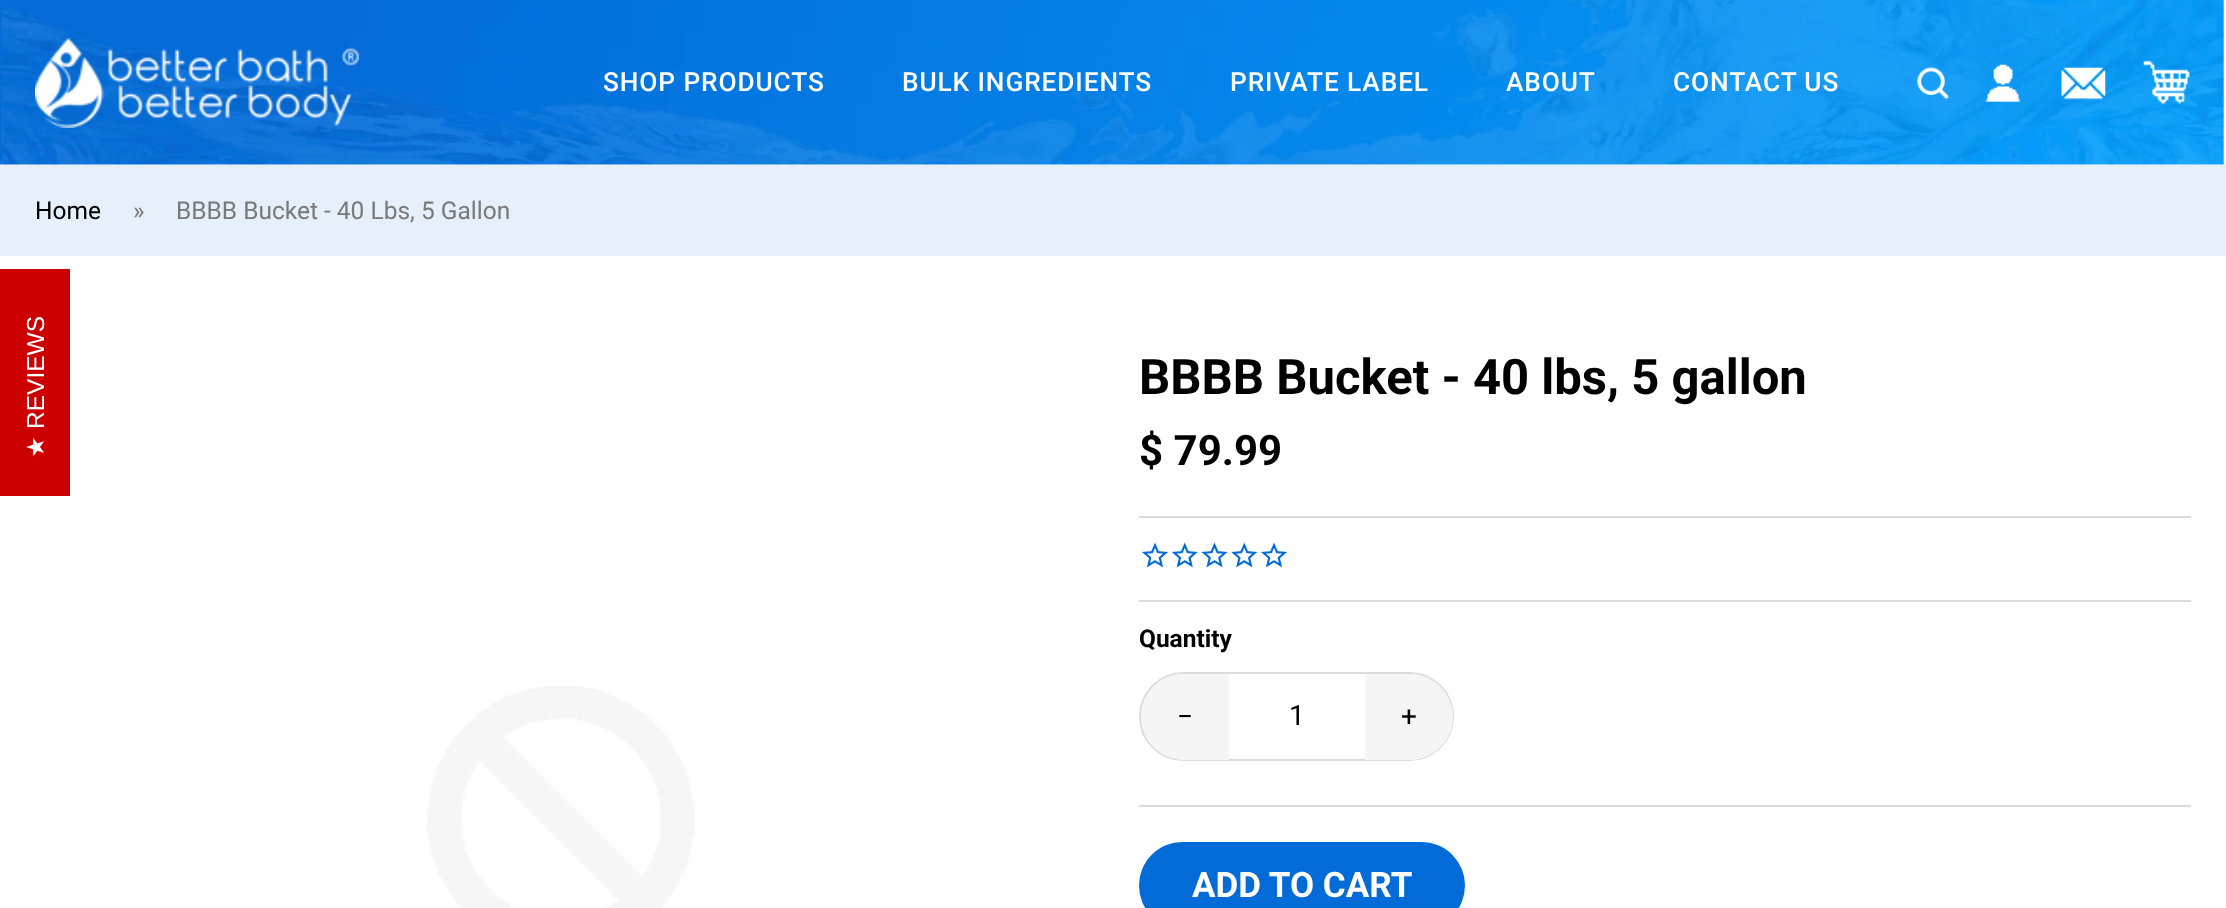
<svg xmlns="http://www.w3.org/2000/svg" xmlns:xlink="http://www.w3.org/1999/xlink" width="2226" height="908" viewBox="0 0 2226 908">
<style>
.cls-1{font:500 26.25px Roboto;letter-spacing:0.9px;fill:#ffffff}
.cls-2{font:24.5px Liberation Sans;fill:#ffffff}
.cls-3{font:24.5px DejaVu Sans;fill:#ffffff}
.cls-4{font:24.5px Roboto;fill:#000000}
.cls-5{font:24.5px Roboto;fill:#797979}
.cls-6{font:bold 49px Roboto;fill:#000000}
.cls-7{font:bold 42px Roboto;fill:#000000}
.cls-8{font:bold 24.5px Roboto;fill:#000000}
.cls-9{font:28px Roboto;fill:#000000}
.cls-10{font:bold 35px Roboto;fill:#ffffff}
</style>
<rect width="100%" height="100%" fill="#ffffff"/>
<image xlink:href="image0.png" x="0" y="0" width="2225" height="165"/>
<image xlink:href="image1.png" x="35" y="38" width="324" height="90"/>
<image xlink:href="image2.png" x="1916" y="67" width="33" height="33"/>
<image xlink:href="image3.png" x="1985" y="64" width="36" height="38"/>
<image xlink:href="image4.png" x="2061" y="66" width="45" height="34"/>
<image xlink:href="image5.png" x="2143" y="60" width="47" height="44"/>
<rect fill="#cc0000" x="0" y="269" width="70" height="227"/>
<rect fill="#e5f0fb" x="0" y="165" width="2226" height="91"/>
<image xlink:href="image6.png" x="427" y="686" width="268" height="222"/>
<rect fill="#dcdcdc" x="1139" y="516" width="1052" height="2"/>
<rect fill="#dcdcdc" x="1139" y="600" width="1052" height="2"/>
<image xlink:href="image7.png" x="1142" y="542" width="26" height="26"/>
<image xlink:href="image8.png" x="1171" y="542" width="27" height="26"/>
<image xlink:href="image9.png" x="1201" y="542" width="27" height="26"/>
<image xlink:href="image10.png" x="1231" y="542" width="27" height="26"/>
<image xlink:href="image7.png" x="1261" y="542" width="26" height="26"/>
<rect fill="none" stroke="#dcdcdc" stroke-width="2" x="1140" y="673" width="313" height="87" rx="43.5"/>
<path fill="#f5f5f5" d="M1184 674H1229V760H1184C1160.5 760 1141 740.5 1141 717C1141 693.5 1160.5 674 1184 674Z"/>
<path fill="#f5f5f5" d="M1365 674H1410C1433.5 674 1453 693.5 1453 717C1453 740.5 1433.5 760 1410 760H1365Z"/>
<rect fill="#dcdcdc" x="1139" y="805" width="1052" height="2"/>
<rect fill="#036bd7" x="1139" y="842" width="326" height="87" rx="43.5"/>
<text class="cls-1" x="603" y="91">SHOP PRODUCTS</text>
<text class="cls-1" x="902" y="91">BULK INGREDIENTS</text>
<text class="cls-1" x="1230" y="91">PRIVATE LABEL</text>
<text class="cls-1" x="1506" y="91">ABOUT</text>
<text class="cls-1" x="1673" y="91">CONTACT US</text>
<text class="cls-2" x="44" y="429" transform="rotate(-90 44 429)">REVIEWS</text>
<text class="cls-3" x="44" y="458" transform="rotate(-90 44 458)">★</text>
<text class="cls-4" x="35" y="219">Home</text>
<text class="cls-5" x="133" y="219">»</text>
<text class="cls-5" x="176" y="219">BBBB Bucket - 40 Lbs, 5 Gallon</text>
<text class="cls-6" x="1139" y="394">BBBB Bucket - 40 lbs, 5 gallon</text>
<text class="cls-7" x="1139" y="465">$ 79.99</text>
<text class="cls-8" x="1139" y="647">Quantity</text>
<text class="cls-9" x="1177" y="726">−</text>
<text class="cls-9" x="1289" y="725">1</text>
<text class="cls-9" x="1401" y="726">+</text>
<text class="cls-10" x="1192" y="897">ADD TO CART</text>
</svg>
